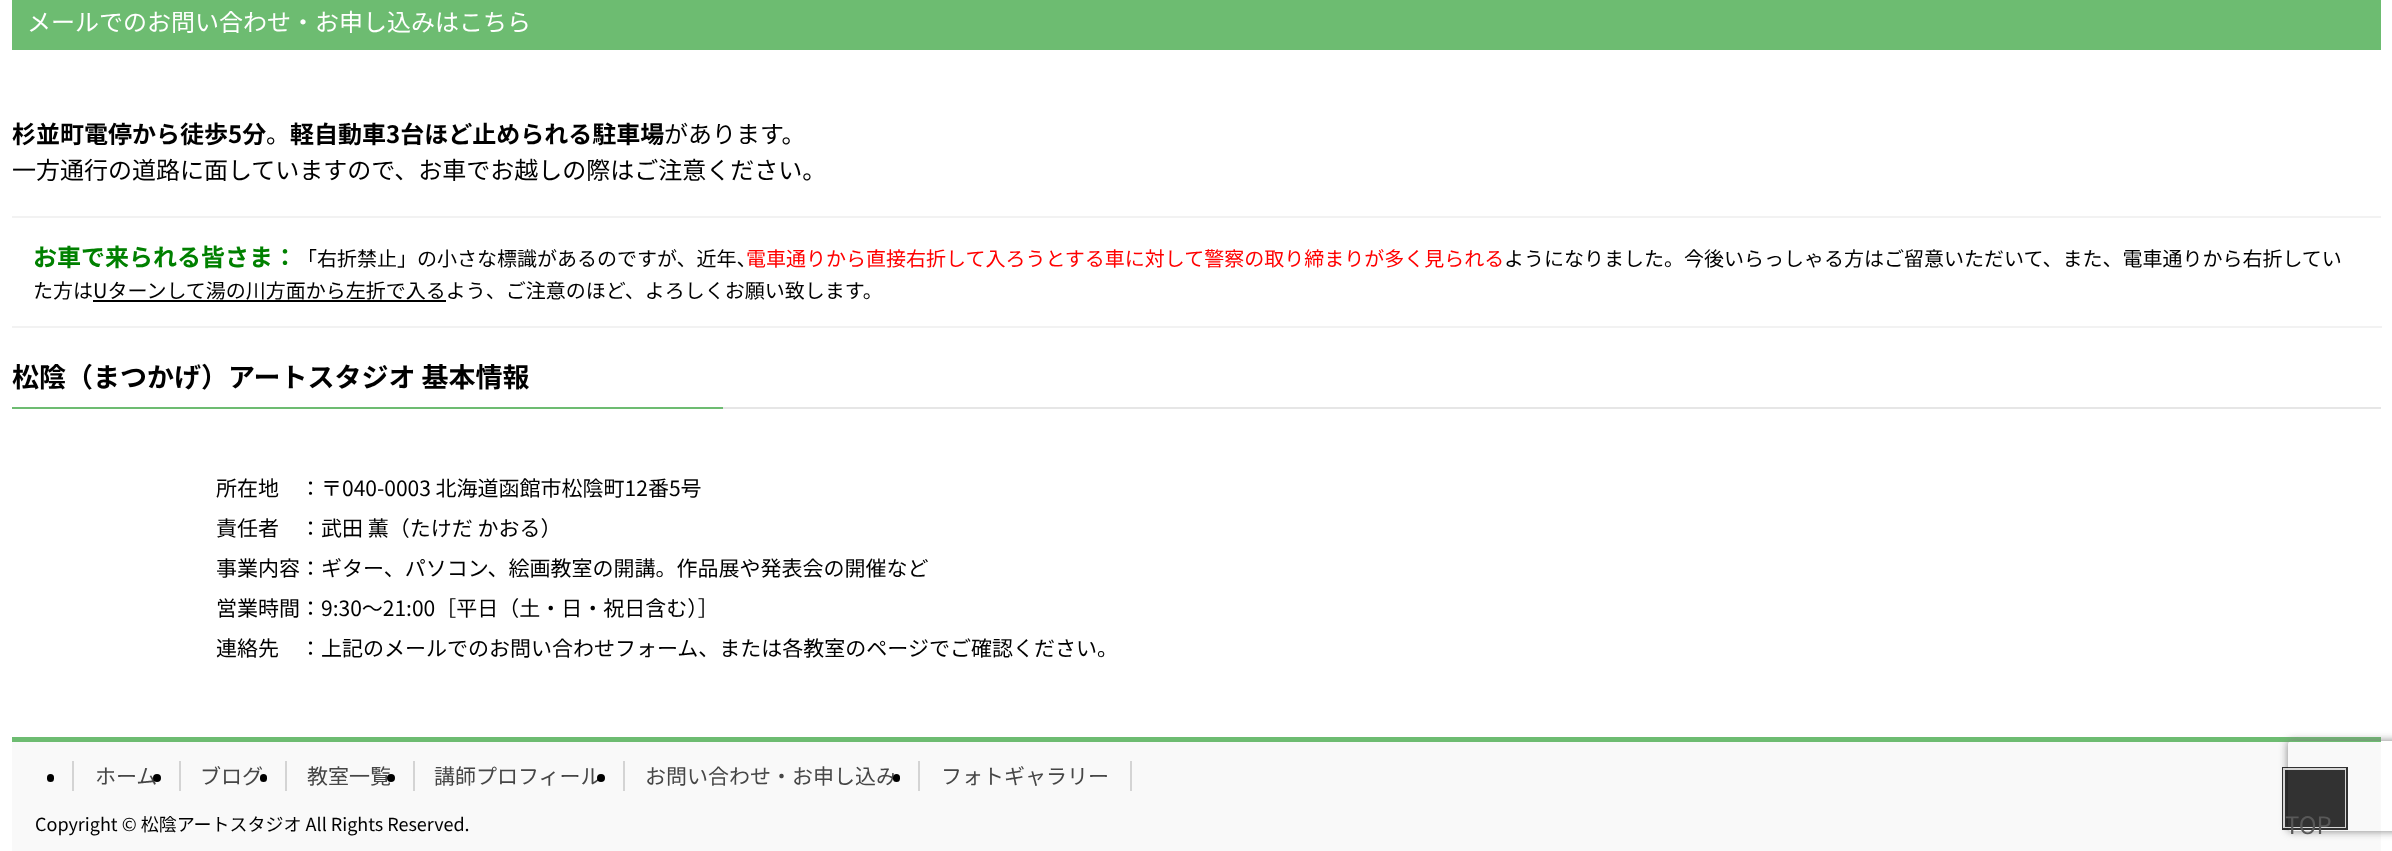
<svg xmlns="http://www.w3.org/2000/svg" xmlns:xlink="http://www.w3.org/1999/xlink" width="2392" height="851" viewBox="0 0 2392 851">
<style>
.cls-1{font:24px Noto Sans JP;fill:#ffffff}
.cls-2{font:bold 24px Noto Sans JP;fill:#000000}
.cls-3{font:24px Noto Sans JP;fill:#000000}
.cls-4{font:bold 24px Noto Sans JP;fill:#008000}
.cls-5{font:20px Noto Sans JP;fill:#000000}
.cls-6{font:20px Noto Sans JP;fill:#ff0000}
.cls-7{font:bold 27px Noto Sans JP;fill:#000000}
.cls-8{font:21px Noto Sans JP;fill:#000000}
.cls-9{font:21px Noto Sans JP;fill:#464646}
.cls-10{font:18px Noto Sans JP;fill:#000000}
.cls-11{font:24px Noto Sans JP;fill:#585858}
</style>
<defs>
<clipPath id="clip1"><path d="M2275 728H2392V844H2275ZM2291 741H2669C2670.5 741 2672 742.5 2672 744V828C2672 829.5 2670.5 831 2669 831H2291C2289.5 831 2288 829.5 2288 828V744C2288 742.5 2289.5 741 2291 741Z" clip-rule="evenodd"/></clipPath>
</defs>
<rect width="100%" height="100%" fill="#ffffff"/>
<rect fill="#6dbc71" x="12" y="0" width="2369" height="50"/>
<rect fill="#f2f2f2" x="12" y="216" width="2369" height="2"/>
<rect fill="#f2f2f2" x="12" y="326" width="2370" height="2"/>
<rect fill="#000000" x="93" y="300" width="353" height="2"/>
<rect fill="#e6e6e6" x="723" y="407" width="1658" height="2"/>
<rect fill="#6dbc71" x="12" y="407" width="711" height="2"/>
<rect fill="#f9f9f9" x="12" y="742" width="2369" height="109"/>
<rect fill="#6dbc71" x="12" y="737" width="2369" height="5"/>
<rect fill="#000000" x="47" y="774" width="7" height="8" rx="3.5"/>
<rect fill="#d4d4d4" x="72" y="761" width="2" height="30"/>
<rect fill="#d4d4d4" x="179" y="761" width="2" height="30"/>
<rect fill="#d4d4d4" x="285" y="761" width="2" height="30"/>
<rect fill="#d4d4d4" x="413" y="761" width="2" height="30"/>
<rect fill="#d4d4d4" x="623" y="761" width="2" height="30"/>
<rect fill="#d4d4d4" x="1130" y="761" width="2" height="30"/>
<rect fill="#d4d4d4" x="918" y="761" width="2" height="30"/>
<g clip-path="url(#clip1)">
<rect fill="#808080" filter="blur(4px)" x="2288" y="741" width="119" height="90" rx="3"/>
</g>
<rect fill="none" stroke="#000000" stroke-opacity="0.8" stroke-width="3" x="2283.5" y="768.5" width="63" height="60"/>
<rect fill="none" stroke="#ffffff" stroke-opacity="0.8" stroke-width="2" x="2284" y="769" width="61" height="58"/>
<rect fill="#000000" fill-opacity="0.8" x="2285" y="770" width="60" height="57"/>
<text class="cls-1" x="27" y="31">メールでのお問い合わせ・お申し込みはこちら</text>
<text class="cls-2" x="12" y="143">杉並町電停から徒歩5分</text>
<text class="cls-3" x="266" y="143">。</text>
<text class="cls-2" x="290" y="143">軽自動車3台ほど止められる駐車場</text>
<text class="cls-3" x="664" y="143">があります。</text>
<text class="cls-3" x="12" y="179">一方通行の道路に面していますので、お車でお越しの際はご注意ください。</text>
<text class="cls-4" x="33" y="266">お車で来られる皆さま：</text>
<text class="cls-5" x="297" y="266">「右折禁止」の小さな標識があるのですが、近年、</text>
<text class="cls-6" x="746" y="266">電車通りから直接右折して入ろうとする車に対して警察の取り締まりが多く見られる</text>
<text class="cls-5" x="1504" y="266">ようになりました。今後いらっしゃる方はご留意いただいて、また、電車通りから右折してい</text>
<text class="cls-5" x="33" y="298">た方はUターンして湯の川方面から左折で入るよう、ご注意のほど、よろしくお願い致します。</text>
<text class="cls-7" x="12" y="387">松陰（まつかげ）アートスタジオ 基本情報</text>
<text class="cls-8"><tspan x="216" y="496">所在地　：〒040-0003 北海道函館市松陰町12番5号</tspan><tspan x="216" y="536">責任者　：武田 薫（たけだ かおる）</tspan><tspan x="216" y="576">事業内容：ギター、パソコン、絵画教室の開講。作品展や発表会の開催など</tspan><tspan x="216" y="616">営業時間：9:30〜21:00［平日（土・日・祝日含む）］</tspan><tspan x="216" y="656">連絡先　：上記のメールでのお問い合わせフォーム、または各教室のページでご確認ください。</tspan></text>
<text class="cls-9" x="95" y="784">ホーム</text>
<circle fill="#000000" cx="157" cy="778" r="4"/>
<text class="cls-9" x="200" y="784">ブログ</text>
<rect fill="#000000" x="260" y="774" width="7" height="8" rx="3.5"/>
<text class="cls-9" x="307" y="784">教室一覧</text>
<circle fill="#000000" cx="391" cy="778" r="4"/>
<text class="cls-9" x="434" y="784">講師プロフィール</text>
<circle fill="#000000" cx="601" cy="778" r="4"/>
<text class="cls-9" x="645" y="784">お問い合わせ・お申し込み</text>
<rect fill="#000000" x="893" y="774" width="7" height="8" rx="3.5"/>
<text class="cls-9" x="941" y="784">フォトギャラリー</text>
<text class="cls-10" x="35" y="831">Copyright © 松陰アートスタジオ All Rights Reserved.</text>
<text class="cls-11" x="2285" y="834">TOP</text>
</svg>
